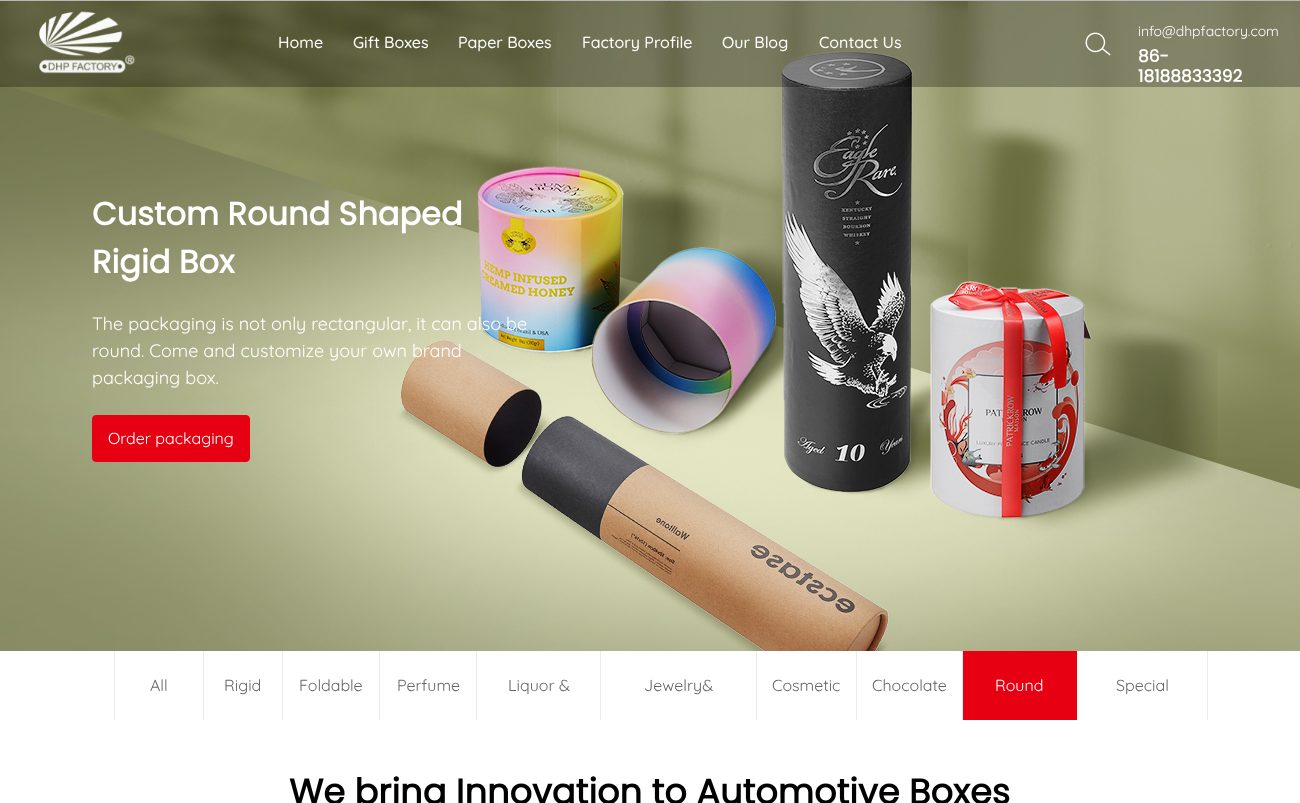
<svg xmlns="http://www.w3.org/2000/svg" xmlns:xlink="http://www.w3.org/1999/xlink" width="1300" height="803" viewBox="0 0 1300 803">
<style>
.cls-1{font:500 16px Quicksand;fill:#ffffff}
.cls-2{font:14px Quicksand;fill:#ffffff}
.cls-3{font:bold 17px Poppins;fill:#ffffff}
.cls-4{font:bold 32px Poppins;fill:#ffffff}
.cls-5{font:18px Quicksand;fill:#ffffff}
.cls-6{font:16px Quicksand;fill:#ffffff}
.cls-7{font:16px Quicksand;fill:#666666}
.cls-8{font:bold 35.2px Poppins;fill:#000000}
</style>
<rect width="100%" height="100%" fill="#ffffff"/>
<image xlink:href="image2.png" x="0" y="1" width="1300" height="650"/>
<rect fill="#000000" fill-opacity="0.28" x="0" y="0" width="1300" height="87"/>
<image xlink:href="image0.png" x="39" y="11" width="96" height="63"/>
<image xlink:href="image1.png" x="1085" y="32" width="26" height="24"/>
<rect fill="#e60011" stroke="#e60011" x="92.5" y="415.5" width="157" height="46" rx="3.5"/>
<rect fill="#ededed" x="203" y="651" width="1" height="70"/>
<rect fill="#ededed" x="114" y="651" width="1" height="70"/>
<rect fill="#ededed" x="282" y="651" width="1" height="70"/>
<rect fill="#ededed" x="379" y="651" width="1" height="70"/>
<rect fill="#ededed" x="476" y="651" width="1" height="70"/>
<rect fill="#ededed" x="600" y="651" width="1" height="70"/>
<rect fill="#ededed" x="756" y="651" width="1" height="70"/>
<rect fill="#ededed" x="856" y="651" width="1" height="70"/>
<rect fill="#ededed" x="962" y="651" width="1" height="70"/>
<rect fill="#e60011" x="963" y="651" width="114" height="69"/>
<rect fill="#ededed" x="1207" y="651" width="1" height="70"/>
<rect fill="#ffffff" x="114" y="720" width="1094" height="1"/>
<text class="cls-1" x="278" y="48">Home</text>
<text class="cls-1" x="353" y="48">Gift Boxes</text>
<text class="cls-1" x="458" y="48">Paper Boxes</text>
<text class="cls-1" x="582" y="48">Factory Profile</text>
<text class="cls-1" x="722" y="48">Our Blog</text>
<text class="cls-1" x="819" y="48">Contact Us</text>
<text class="cls-2" x="1138" y="36">info@dhpfactory.com</text>
<text class="cls-3"><tspan x="1138" y="62">86-</tspan><tspan x="1138" y="82">18188833392</tspan></text>
<text class="cls-4"><tspan x="92" y="225">Custom Round Shaped</tspan><tspan x="92" y="273">Rigid Box</tspan></text>
<text class="cls-5"><tspan x="92" y="330">The packaging is not only rectangular, it can also be</tspan><tspan x="92" y="357">round. Come and customize your own brand</tspan><tspan x="92" y="384">packaging box.</tspan></text>
<text class="cls-6" x="108" y="444">Order packaging</text>
<text class="cls-7" x="150" y="691">All</text>
<text class="cls-7" x="224" y="691">Rigid</text>
<text class="cls-7" x="299" y="691">Foldable</text>
<text class="cls-7" x="397" y="691">Perfume</text>
<text class="cls-7" x="508" y="691">Liquor &amp;</text>
<text class="cls-7" x="644" y="691">Jewelry&amp;</text>
<text class="cls-7" x="772" y="691">Cosmetic</text>
<text class="cls-7" x="872" y="691">Chocolate</text>
<text class="cls-6" x="995" y="691">Round</text>
<text class="cls-7" x="1116" y="691">Special</text>
<text class="cls-8" x="289" y="804">We bring Innovation to Automotive Boxes</text>
</svg>
